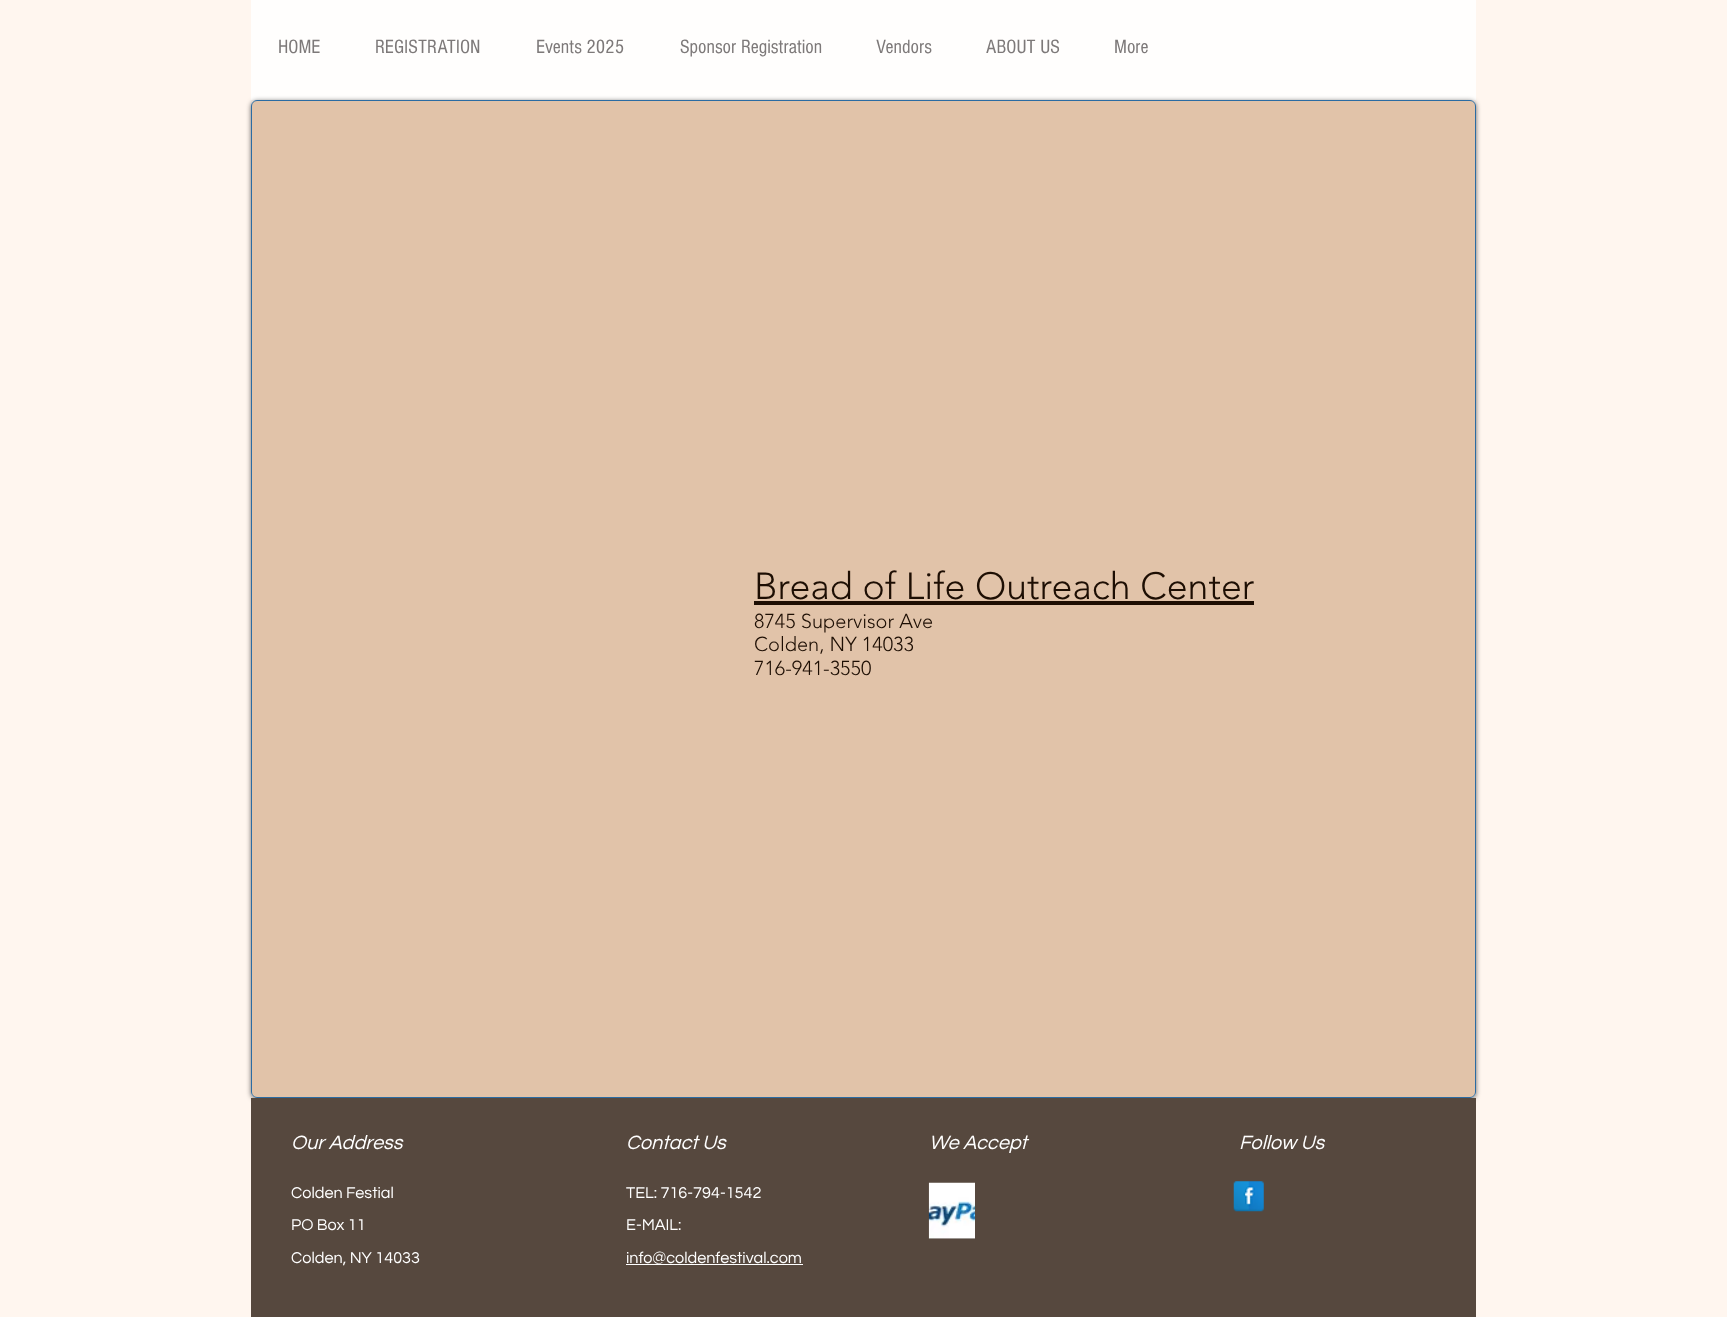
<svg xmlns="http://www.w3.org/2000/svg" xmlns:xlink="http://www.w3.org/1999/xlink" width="1727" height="1317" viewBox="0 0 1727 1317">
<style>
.cls-1{font:20px 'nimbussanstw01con';fill:#7d7979}
.cls-2{font:300 37.5px 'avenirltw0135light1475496';fill:#1d0e03}
.cls-3{font:300 20px 'avenirltw0135light1475496';fill:#1d0e03}
.cls-4{font:italic 20px Questrial;fill:#ffffff}
.cls-5{font:16.25px Questrial;fill:#ffffff}
</style>
<defs>
<clipPath id="clip1"><path d="M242 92H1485V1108H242ZM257 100H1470C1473.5 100 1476 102.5 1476 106V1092C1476 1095.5 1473.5 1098 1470 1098H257C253.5 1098 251 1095.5 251 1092V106C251 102.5 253.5 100 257 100Z" clip-rule="evenodd"/></clipPath>
</defs>
<rect width="100%" height="100%" fill="#fff6ef"/>
<rect fill="#fffefd" x="251" y="0" width="1225" height="100"/>
<g clip-path="url(#clip1)">
<rect fill="#000000" fill-opacity="0.6" filter="blur(2.5px)" x="251" y="101" width="1225" height="998" rx="6"/>
</g>
<rect fill="#dbb89a" fill-opacity="0.83" stroke="#2b6ca3" x="251.5" y="100.5" width="1224" height="997" rx="5.5"/>
<rect fill="#1d0e03" x="754" y="601" width="500" height="4"/>
<rect fill="#56483e" x="251" y="1098" width="1225" height="219"/>
<rect fill="#ffffff" x="626" y="1264" width="177" height="1"/>
<rect fill="#1d0e03" x="929" y="1238" width="46" height="1"/>
<image xlink:href="image0.png" x="928" y="1182" width="47" height="57"/>
<image xlink:href="image1.png" x="1233" y="1181" width="31" height="31"/>
<text class="cls-1" x="278" y="53">HOME</text>
<text class="cls-1" x="375" y="53">REGISTRATION</text>
<text class="cls-1" x="536" y="53">Events 2025</text>
<text class="cls-1" x="680" y="53">Sponsor Registration</text>
<text class="cls-1" x="876" y="53">Vendors</text>
<text class="cls-1" x="986" y="53">ABOUT US</text>
<text class="cls-1" x="1114" y="53">More</text>
<text class="cls-2" x="754" y="599">Bread of Life Outreach Center</text>
<text class="cls-3"><tspan x="754" y="628">8745 Supervisor Ave</tspan><tspan x="754" y="651">Colden, NY 14033</tspan><tspan x="754" y="675">716-941-3550</tspan></text>
<text class="cls-4" x="291" y="1149">Our Address</text>
<text class="cls-4" x="626" y="1149">Contact Us</text>
<text class="cls-4" x="929" y="1149">We Accept</text>
<text class="cls-4" x="1239" y="1149">Follow Us</text>
<text class="cls-5"><tspan x="291" y="1198">Colden Festial</tspan><tspan x="291" y="1230">PO Box 11</tspan></text>
<text class="cls-5" x="291" y="1263">Colden, NY 14033</text>
<text class="cls-5"><tspan x="626" y="1198">TEL: 716-794-1542</tspan><tspan x="626" y="1230">E-MAIL:</tspan></text>
<text class="cls-5" x="626" y="1263">info@coldenfestival.com</text>
</svg>
